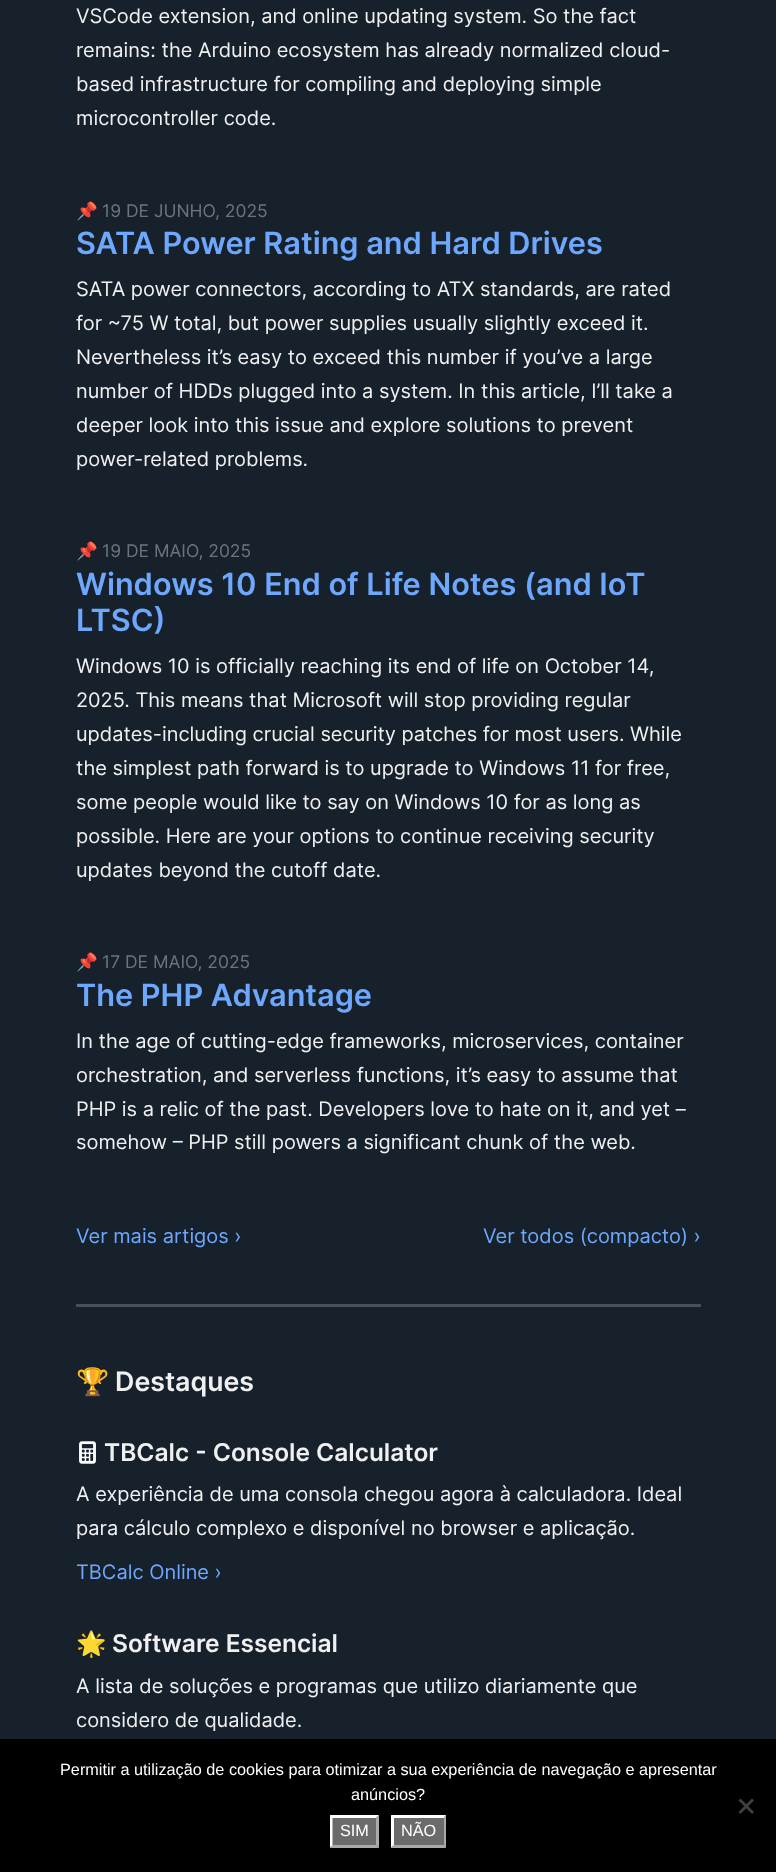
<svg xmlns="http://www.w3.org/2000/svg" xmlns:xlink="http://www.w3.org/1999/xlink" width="776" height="1872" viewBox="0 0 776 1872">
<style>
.cls-1{font:20px Inter;fill:#f0f0f0}
.cls-2{font:17.5px Noto Color Emoji;fill:#6c757d}
.cls-3{font:17.5px Inter;fill:#6c757d}
.cls-4{font:600 30.7px Inter;fill:#6ea8fe}
.cls-5{font:20px Inter;fill:#6ea8fe}
.cls-6{font:bold 26.75px Noto Color Emoji;fill:#f0f0f0}
.cls-7{font:600 26.75px Inter;fill:#f0f0f0}
.cls-8{font:600 24.5px Inter;fill:#f0f0f0}
.cls-9{font:bold 24.5px Noto Color Emoji;fill:#f0f0f0}
.cls-10{font:16.25px Liberation Sans;fill:#ffffff}
</style>
<rect width="100%" height="100%" fill="#17212b"/>
<rect fill="#495057" x="76" y="1304" width="625" height="3"/>
<image xlink:href="image0.png" x="79" y="1441" width="17" height="23"/>
<rect fill="#000000" x="0" y="1739" width="776" height="133"/>
<path fill="#404040" d="M752 1798.5L754 1800.5L740.5 1814L738.5 1812Z"/>
<path fill="#404040" d="M738.5 1800.5L740.5 1798.5L754 1812L752 1814Z"/>
<rect fill="#6b6b6b" x="330" y="1815" width="49" height="33"/>
<path fill="#ffffff" d="M330 1815H379L376 1818H332Z"/>
<path fill="#aaaaaa" d="M379 1815V1847.5L376 1845V1817.5Z"/>
<path fill="#aaaaaa" d="M379 1848H330L332 1845H376Z"/>
<path fill="#ffffff" d="M330 1847.5V1815L332.5 1817.5V1845Z"/>
<rect fill="#6b6b6b" x="391" y="1815" width="55" height="33"/>
<path fill="#ffffff" d="M391 1815H446L444 1818H394Z"/>
<path fill="#aaaaaa" d="M446 1815V1847.5L444 1845V1817.5Z"/>
<path fill="#aaaaaa" d="M446 1848H391L394 1845H444Z"/>
<path fill="#ffffff" d="M391 1847.5V1815L394 1817.5V1845Z"/>
<text class="cls-1"><tspan x="76" y="23">VSCode extension, and online updating system. So the fact</tspan><tspan x="76" y="57">remains: the Arduino ecosystem has already normalized cloud-</tspan><tspan x="76" y="91">based infrastructure for compiling and deploying simple</tspan><tspan x="76" y="125">microcontroller code.</tspan></text>
<text class="cls-2" x="76" y="217">📌</text>
<text class="cls-3" x="102" y="217">19 DE JUNHO, 2025</text>
<text class="cls-4" x="76" y="254">SATA Power Rating and Hard Drives</text>
<text class="cls-1"><tspan x="76" y="296">SATA power connectors, according to ATX standards, are rated</tspan><tspan x="76" y="330">for ~75 W total, but power supplies usually slightly exceed it.</tspan><tspan x="76" y="364">Nevertheless it’s easy to exceed this number if you’ve a large</tspan><tspan x="76" y="398">number of HDDs plugged into a system. In this article, I’ll take a</tspan><tspan x="76" y="432">deeper look into this issue and explore solutions to prevent</tspan><tspan x="76" y="466">power-related problems.</tspan></text>
<text class="cls-2" x="76" y="557">📌</text>
<text class="cls-3" x="102" y="557">19 DE MAIO, 2025</text>
<text class="cls-4"><tspan x="76" y="595">Windows 10 End of Life Notes (and IoT</tspan><tspan x="76" y="631">LTSC)</tspan></text>
<text class="cls-1"><tspan x="76" y="673">Windows 10 is officially reaching its end of life on October 14,</tspan><tspan x="76" y="707">2025. This means that Microsoft will stop providing regular</tspan><tspan x="76" y="741">updates-including crucial security patches for most users. While</tspan><tspan x="76" y="775">the simplest path forward is to upgrade to Windows 11 for free,</tspan><tspan x="76" y="809">some people would like to say on Windows 10 for as long as</tspan><tspan x="76" y="843">possible. Here are your options to continue receiving security</tspan><tspan x="76" y="877">updates beyond the cutoff date.</tspan></text>
<text class="cls-2" x="76" y="968">📌</text>
<text class="cls-3" x="102" y="968">17 DE MAIO, 2025</text>
<text class="cls-4" x="76" y="1006">The PHP Advantage</text>
<text class="cls-1"><tspan x="76" y="1048">In the age of cutting-edge frameworks, microservices, container</tspan><tspan x="76" y="1082">orchestration, and serverless functions, it’s easy to assume that</tspan><tspan x="76" y="1116">PHP is a relic of the past. Developers love to hate on it, and yet –</tspan><tspan x="76" y="1149">somehow – PHP still powers a significant chunk of the web.</tspan></text>
<text class="cls-5" x="76" y="1243">Ver mais artigos ›</text>
<text class="cls-5" x="483" y="1243">Ver todos (compacto) ›</text>
<text class="cls-6" x="76" y="1391">🏆</text>
<text class="cls-7" x="115" y="1391">Destaques</text>
<text class="cls-8" x="104" y="1461">TBCalc - Console Calculator</text>
<text class="cls-1"><tspan x="76" y="1501">A experiência de uma consola chegou agora à calculadora. Ideal</tspan><tspan x="76" y="1535">para cálculo complexo e disponível no browser e aplicação.</tspan></text>
<text class="cls-5" x="76" y="1579">TBCalc Online ›</text>
<text class="cls-9" x="76" y="1652">🌟</text>
<text class="cls-8" x="112" y="1652">Software Essencial</text>
<text class="cls-1"><tspan x="76" y="1693">A lista de soluções e programas que utilizo diariamente que</tspan><tspan x="76" y="1727">considero de qualidade.</tspan></text>
<text class="cls-10" x="60" y="1775">Permitir a utilização de cookies para otimizar a sua experiência de navegação e apresentar</text>
<text class="cls-10" x="351" y="1800">anúncios?</text>
<text class="cls-10" x="340" y="1836">SIM</text>
<text class="cls-10" x="401" y="1836">NÃO</text>
</svg>
